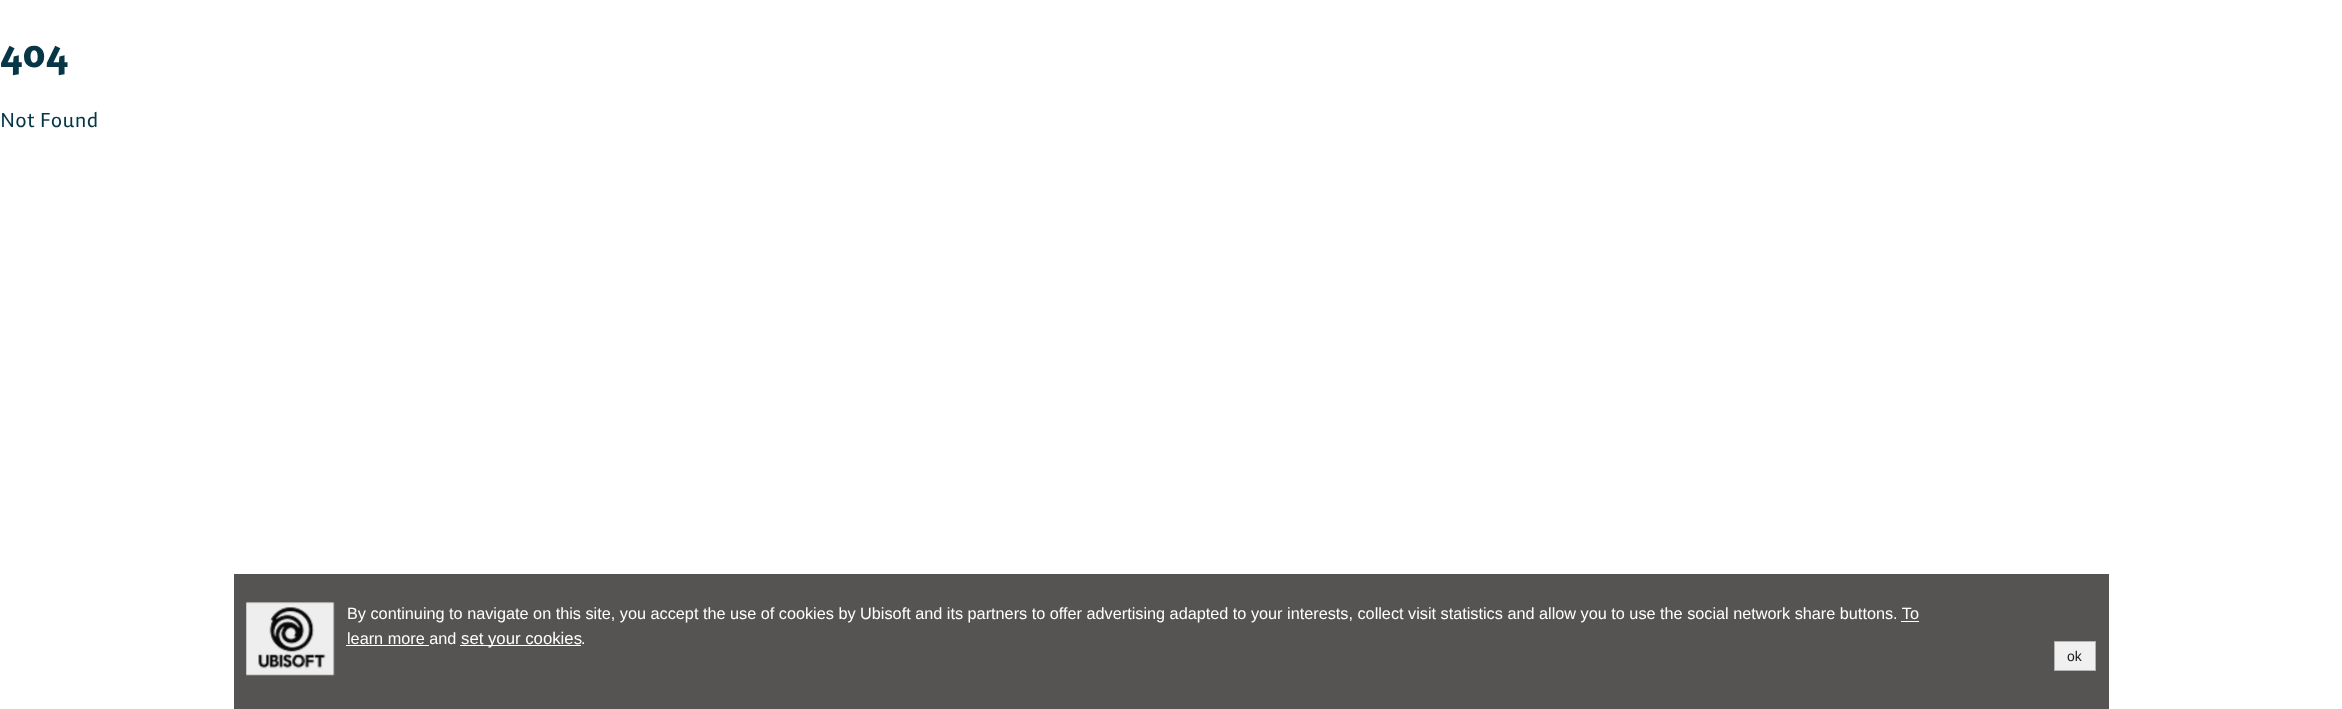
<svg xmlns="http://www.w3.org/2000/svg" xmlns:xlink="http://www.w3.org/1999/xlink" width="2342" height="709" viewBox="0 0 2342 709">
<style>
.cls-1{font:bold 40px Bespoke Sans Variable;fill:#073747}
.cls-2{font:20px Bespoke Sans Variable;fill:#073747}
.cls-3{font:16.25px Liberation Sans;fill:#ffffff}
.cls-4{font:16.75px Liberation Sans;fill:#ffffff}
.cls-5{font:14px Liberation Sans;fill:#1a1a1a}
</style>
<rect width="100%" height="100%" fill="#ffffff"/>
<rect fill="#565353" x="234" y="574" width="1875" height="135"/>
<image xlink:href="image0.png" x="246" y="602" width="89" height="74"/>
<rect fill="#ffffff" x="1901" y="621" width="18" height="1"/>
<rect fill="#ffffff" x="346" y="645" width="83" height="1"/>
<rect fill="#ffffff" x="460" y="645" width="121" height="1"/>
<rect fill="#f0f0f0" stroke="#b3b3b3" x="2054.5" y="641.5" width="41" height="29"/>
<text class="cls-1" x="0" y="67">404</text>
<text class="cls-2" x="0" y="127">Not Found</text>
<text class="cls-3"><tspan x="347" y="619">By continuing to navigate on this site, you accept the use of cookies by Ubisoft and its partners to offer advertising adapted to your interests, collect visit statistics and allow you to use the social network share buttons. To</tspan><tspan x="347" y="644">learn more and</tspan></text>
<text class="cls-4" x="461" y="644">set your cookies</text>
<text class="cls-3" x="581" y="644">.</text>
<text class="cls-5" x="2067" y="661">ok</text>
</svg>
